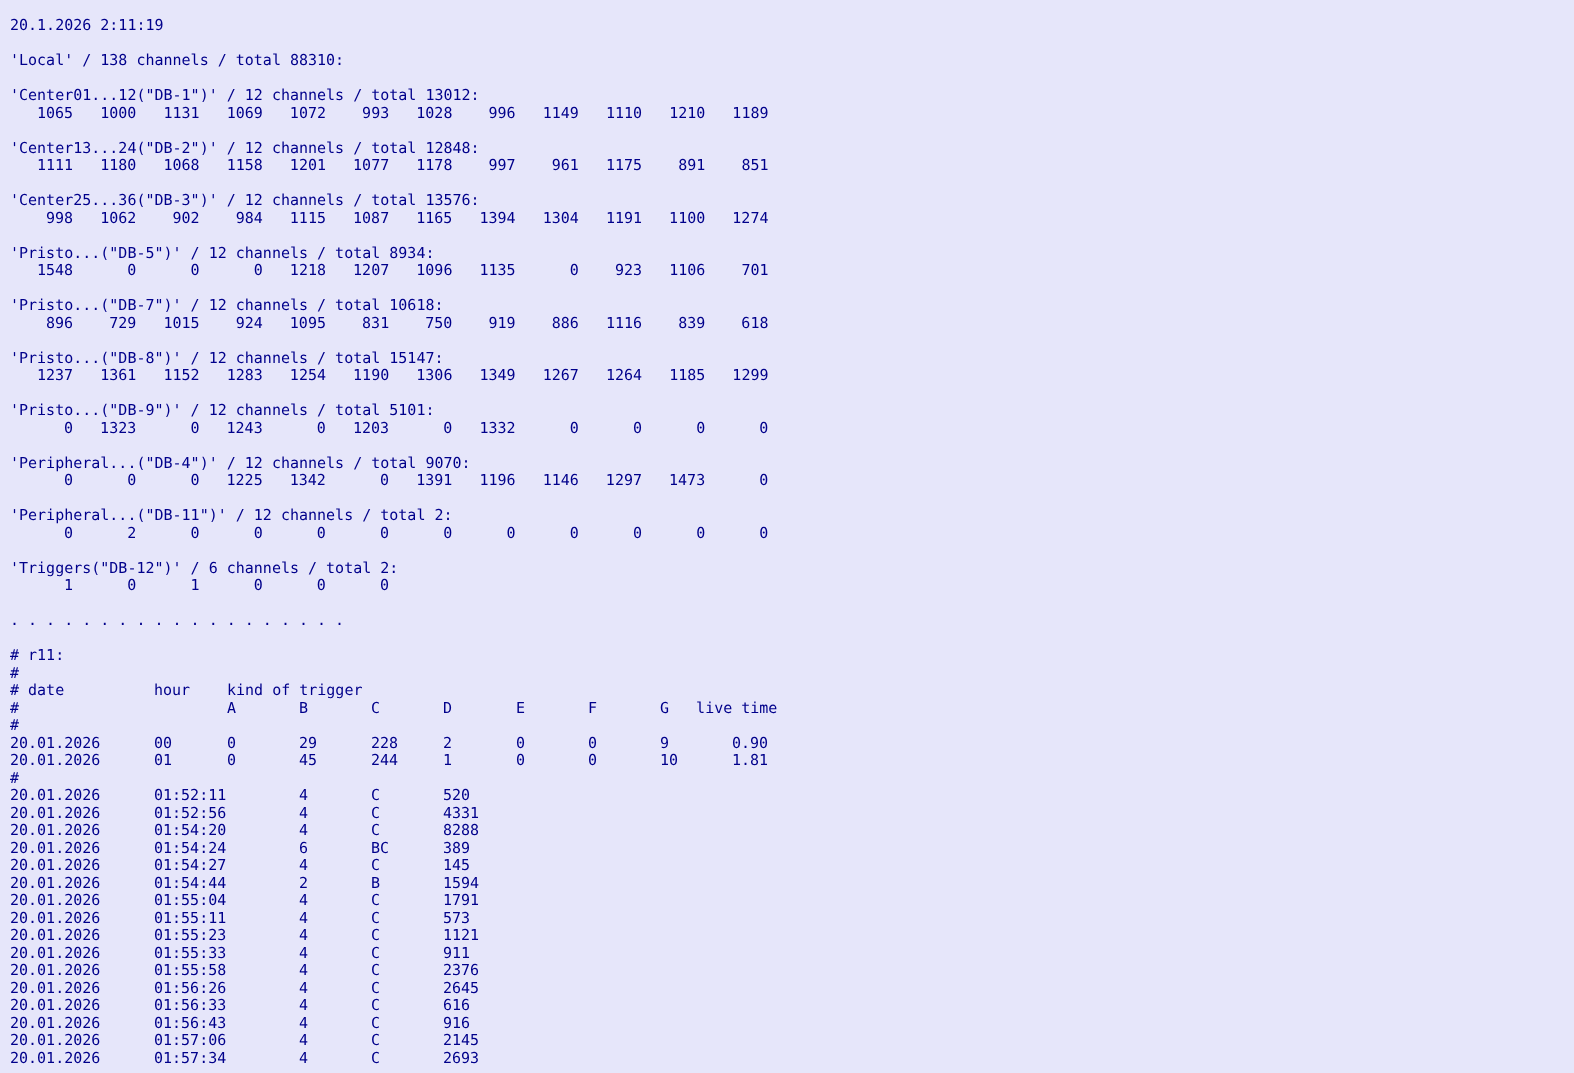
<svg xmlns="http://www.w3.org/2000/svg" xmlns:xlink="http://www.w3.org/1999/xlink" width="1574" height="1073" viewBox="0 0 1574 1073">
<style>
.cls-1{font:15px DejaVu Sans Mono;fill:#00008b}
</style>
<rect width="100%" height="100%" fill="#e6e6fa"/>
<text class="cls-1" x="10" y="30">20.1.2026 2:11:19</text>
<text class="cls-1" x="10" y="65">'Local' / 138 channels / total 88310:</text>
<text class="cls-1" x="10" y="100">'Center01...12("DB-1")' / 12 channels / total 13012:</text>
<text class="cls-1" xml:space="preserve" x="37" y="118">1065   1000   1131   1069   1072    993   1028    996   1149   1110   1210   1189</text>
<text class="cls-1" x="10" y="153">'Center13...24("DB-2")' / 12 channels / total 12848:</text>
<text class="cls-1" xml:space="preserve" x="37" y="170">1111   1180   1068   1158   1201   1077   1178    997    961   1175    891    851</text>
<text class="cls-1" x="10" y="205">'Center25...36("DB-3")' / 12 channels / total 13576:</text>
<text class="cls-1" xml:space="preserve" x="46" y="223">998   1062    902    984   1115   1087   1165   1394   1304   1191   1100   1274</text>
<text class="cls-1" x="10" y="258">'Pristo...("DB-5")' / 12 channels / total 8934:</text>
<text class="cls-1" xml:space="preserve" x="37" y="275">1548      0      0      0   1218   1207   1096   1135      0    923   1106    701</text>
<text class="cls-1" x="10" y="310">'Pristo...("DB-7")' / 12 channels / total 10618:</text>
<text class="cls-1" xml:space="preserve" x="46" y="328">896    729   1015    924   1095    831    750    919    886   1116    839    618</text>
<text class="cls-1" x="10" y="363">'Pristo...("DB-8")' / 12 channels / total 15147:</text>
<text class="cls-1" xml:space="preserve" x="37" y="380">1237   1361   1152   1283   1254   1190   1306   1349   1267   1264   1185   1299</text>
<text class="cls-1" x="10" y="415">'Pristo...("DB-9")' / 12 channels / total 5101:</text>
<text class="cls-1" xml:space="preserve" x="64" y="433">0   1323      0   1243      0   1203      0   1332      0      0      0      0</text>
<text class="cls-1" x="10" y="468">'Peripheral...("DB-4")' / 12 channels / total 9070:</text>
<text class="cls-1" xml:space="preserve" x="64" y="485">0      0      0   1225   1342      0   1391   1196   1146   1297   1473      0</text>
<text class="cls-1" x="10" y="520">'Peripheral...("DB-11")' / 12 channels / total 2:</text>
<text class="cls-1" xml:space="preserve" x="64" y="538">0      2      0      0      0      0      0      0      0      0      0      0</text>
<text class="cls-1" x="10" y="573">'Triggers("DB-12")' / 6 channels / total 2:</text>
<text class="cls-1" xml:space="preserve" x="64" y="590">1      0      1      0      0      0</text>
<text class="cls-1" x="10" y="625">. . . . . . . . . . . . . . . . . . .</text>
<text class="cls-1"><tspan x="10" y="660"># r11:</tspan><tspan x="10" y="678">#</tspan><tspan x="10" y="695"># date</tspan></text>
<text class="cls-1" x="154" y="695">hour</text>
<text class="cls-1" x="227" y="695">kind of trigger</text>
<text class="cls-1" x="10" y="713">#</text>
<text class="cls-1" x="227" y="713">A</text>
<text class="cls-1" x="299" y="713">B</text>
<text class="cls-1" x="371" y="713">C</text>
<text class="cls-1" x="443" y="713">D</text>
<text class="cls-1" x="516" y="713">E</text>
<text class="cls-1" x="588" y="713">F</text>
<text class="cls-1" xml:space="preserve" x="660" y="713">G   live time</text>
<text class="cls-1"><tspan x="10" y="730">#</tspan><tspan x="10" y="748">20.01.2026</tspan></text>
<text class="cls-1" x="154" y="748">00</text>
<text class="cls-1" x="227" y="748">0</text>
<text class="cls-1" x="299" y="748">29</text>
<text class="cls-1" x="371" y="748">228</text>
<text class="cls-1" x="443" y="748">2</text>
<text class="cls-1" x="516" y="748">0</text>
<text class="cls-1" x="588" y="748">0</text>
<text class="cls-1" x="660" y="748">9</text>
<text class="cls-1" x="732" y="748">0.90</text>
<text class="cls-1" x="10" y="765">20.01.2026</text>
<text class="cls-1" x="154" y="765">01</text>
<text class="cls-1" x="227" y="765">0</text>
<text class="cls-1" x="299" y="765">45</text>
<text class="cls-1" x="371" y="765">244</text>
<text class="cls-1" x="443" y="765">1</text>
<text class="cls-1" x="516" y="765">0</text>
<text class="cls-1" x="588" y="765">0</text>
<text class="cls-1" x="660" y="765">10</text>
<text class="cls-1" x="732" y="765">1.81</text>
<text class="cls-1"><tspan x="10" y="783">#</tspan><tspan x="10" y="800">20.01.2026</tspan></text>
<text class="cls-1" x="154" y="800">01:52:11</text>
<text class="cls-1" x="299" y="800">4</text>
<text class="cls-1" x="371" y="800">C</text>
<text class="cls-1" x="443" y="800">520</text>
<text class="cls-1" x="10" y="818">20.01.2026</text>
<text class="cls-1" x="154" y="818">01:52:56</text>
<text class="cls-1" x="299" y="818">4</text>
<text class="cls-1" x="371" y="818">C</text>
<text class="cls-1" x="443" y="818">4331</text>
<text class="cls-1" x="10" y="835">20.01.2026</text>
<text class="cls-1" x="154" y="835">01:54:20</text>
<text class="cls-1" x="299" y="835">4</text>
<text class="cls-1" x="371" y="835">C</text>
<text class="cls-1" x="443" y="835">8288</text>
<text class="cls-1" x="10" y="853">20.01.2026</text>
<text class="cls-1" x="154" y="853">01:54:24</text>
<text class="cls-1" x="299" y="853">6</text>
<text class="cls-1" x="371" y="853">BC</text>
<text class="cls-1" x="443" y="853">389</text>
<text class="cls-1" x="10" y="870">20.01.2026</text>
<text class="cls-1" x="154" y="870">01:54:27</text>
<text class="cls-1" x="299" y="870">4</text>
<text class="cls-1" x="371" y="870">C</text>
<text class="cls-1" x="443" y="870">145</text>
<text class="cls-1" x="10" y="888">20.01.2026</text>
<text class="cls-1" x="154" y="888">01:54:44</text>
<text class="cls-1" x="299" y="888">2</text>
<text class="cls-1" x="371" y="888">B</text>
<text class="cls-1" x="443" y="888">1594</text>
<text class="cls-1" x="10" y="905">20.01.2026</text>
<text class="cls-1" x="154" y="905">01:55:04</text>
<text class="cls-1" x="299" y="905">4</text>
<text class="cls-1" x="371" y="905">C</text>
<text class="cls-1" x="443" y="905">1791</text>
<text class="cls-1" x="10" y="923">20.01.2026</text>
<text class="cls-1" x="154" y="923">01:55:11</text>
<text class="cls-1" x="299" y="923">4</text>
<text class="cls-1" x="371" y="923">C</text>
<text class="cls-1" x="443" y="923">573</text>
<text class="cls-1" x="10" y="940">20.01.2026</text>
<text class="cls-1" x="154" y="940">01:55:23</text>
<text class="cls-1" x="299" y="940">4</text>
<text class="cls-1" x="371" y="940">C</text>
<text class="cls-1" x="443" y="940">1121</text>
<text class="cls-1" x="10" y="958">20.01.2026</text>
<text class="cls-1" x="154" y="958">01:55:33</text>
<text class="cls-1" x="299" y="958">4</text>
<text class="cls-1" x="371" y="958">C</text>
<text class="cls-1" x="443" y="958">911</text>
<text class="cls-1" x="10" y="975">20.01.2026</text>
<text class="cls-1" x="154" y="975">01:55:58</text>
<text class="cls-1" x="299" y="975">4</text>
<text class="cls-1" x="371" y="975">C</text>
<text class="cls-1" x="443" y="975">2376</text>
<text class="cls-1" x="10" y="993">20.01.2026</text>
<text class="cls-1" x="154" y="993">01:56:26</text>
<text class="cls-1" x="299" y="993">4</text>
<text class="cls-1" x="371" y="993">C</text>
<text class="cls-1" x="443" y="993">2645</text>
<text class="cls-1" x="10" y="1010">20.01.2026</text>
<text class="cls-1" x="154" y="1010">01:56:33</text>
<text class="cls-1" x="299" y="1010">4</text>
<text class="cls-1" x="371" y="1010">C</text>
<text class="cls-1" x="443" y="1010">616</text>
<text class="cls-1" x="10" y="1028">20.01.2026</text>
<text class="cls-1" x="154" y="1028">01:56:43</text>
<text class="cls-1" x="299" y="1028">4</text>
<text class="cls-1" x="371" y="1028">C</text>
<text class="cls-1" x="443" y="1028">916</text>
<text class="cls-1" x="10" y="1045">20.01.2026</text>
<text class="cls-1" x="154" y="1045">01:57:06</text>
<text class="cls-1" x="299" y="1045">4</text>
<text class="cls-1" x="371" y="1045">C</text>
<text class="cls-1" x="443" y="1045">2145</text>
<text class="cls-1" x="10" y="1063">20.01.2026</text>
<text class="cls-1" x="154" y="1063">01:57:34</text>
<text class="cls-1" x="299" y="1063">4</text>
<text class="cls-1" x="371" y="1063">C</text>
<text class="cls-1" x="443" y="1063">2693</text>
</svg>
